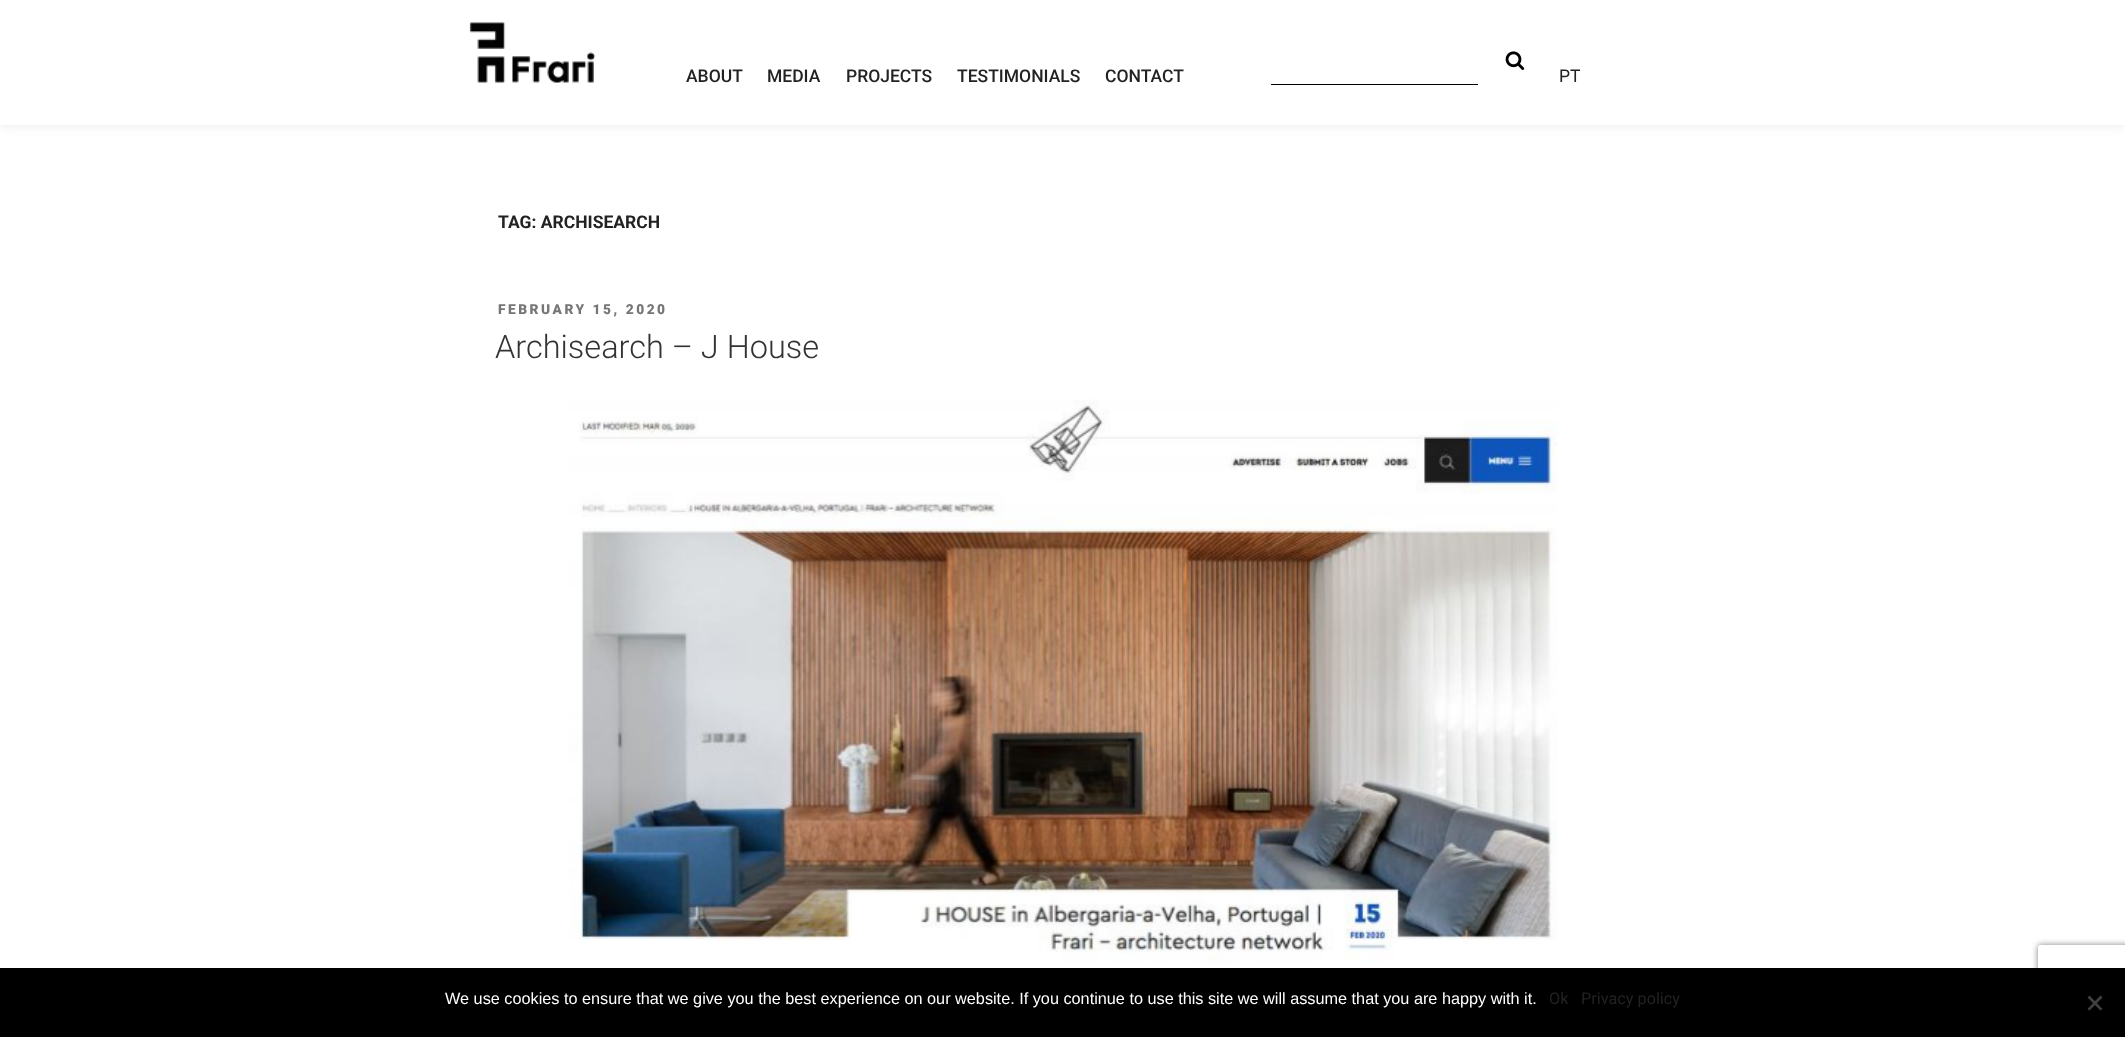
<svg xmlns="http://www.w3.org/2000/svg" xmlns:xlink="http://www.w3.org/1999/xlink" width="2125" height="1037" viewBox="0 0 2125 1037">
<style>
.cls-1{font:500 17.5px Roboto;fill:#222222}
.cls-2{font:17.5px Roboto;fill:#222222}
.cls-3{font:bold 17.5px Roboto;fill:#222222}
.cls-4{font:900 13.75px Roboto;letter-spacing:2.5px;fill:#767676}
.cls-5{font:300 32.5px Roboto;fill:#333333}
.cls-6{font:16.25px Liberation Sans;fill:#ffffff}
.cls-7{font:16.25px Roboto;fill:#222222}
</style>
<defs>
<clipPath id="clip1"><path d="M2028 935H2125V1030H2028ZM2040.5 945H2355.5C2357 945 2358 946 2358 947.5V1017.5C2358 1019 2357 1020 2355.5 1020H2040.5C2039 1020 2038 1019 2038 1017.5V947.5C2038 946 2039 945 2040.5 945Z" clip-rule="evenodd"/></clipPath>
</defs>
<rect width="100%" height="100%" fill="#ffffff"/>
<rect fill="#000000" fill-opacity="0.08" filter="blur(6px)" x="0" y="1" width="2125" height="125"/>
<rect fill="#ffffff" x="0" y="0" width="2125" height="125"/>
<image xlink:href="image0.png" x="469" y="22" width="127" height="61"/>
<image xlink:href="image1.png" x="1505" y="51" width="20" height="19"/>
<rect fill="#000000" x="1271" y="84" width="207" height="1"/>
<image xlink:href="image2.png" x="568" y="399" width="990" height="564"/>
<g clip-path="url(#clip1)">
<rect fill="#808080" filter="blur(3px)" x="2038" y="945" width="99" height="75" rx="2.5"/>
</g>
<rect fill="#000000" x="0" y="968" width="2125" height="69"/>
<path fill="#404040" d="M2100.5 995.5L2102.5 997.5L2089.5 1010.5L2087.5 1009Z"/>
<path fill="#404040" d="M2087.5 997.5L2089.5 995.5L2102.5 1009L2100.5 1010.5Z"/>
<text class="cls-1" x="686" y="82">ABOUT</text>
<text class="cls-1" x="767" y="82">MEDIA</text>
<text class="cls-1" x="846" y="82">PROJECTS</text>
<text class="cls-1" x="957" y="82">TESTIMONIALS</text>
<text class="cls-1" x="1105" y="82">CONTACT</text>
<text class="cls-2" x="1559" y="82">PT</text>
<text class="cls-3" x="498" y="228">TAG: ARCHISEARCH</text>
<text class="cls-4" x="498" y="314">FEBRUARY 15, 2020</text>
<text class="cls-5" x="495" y="358">Archisearch – J House</text>
<text class="cls-6" x="445" y="1004">We use cookies to ensure that we give you the best experience on our website. If you continue to use this site we will assume that you are happy with it.</text>
<text class="cls-7" x="1549" y="1004">Ok</text>
<text class="cls-7" x="1581" y="1004">Privacy policy</text>
</svg>
